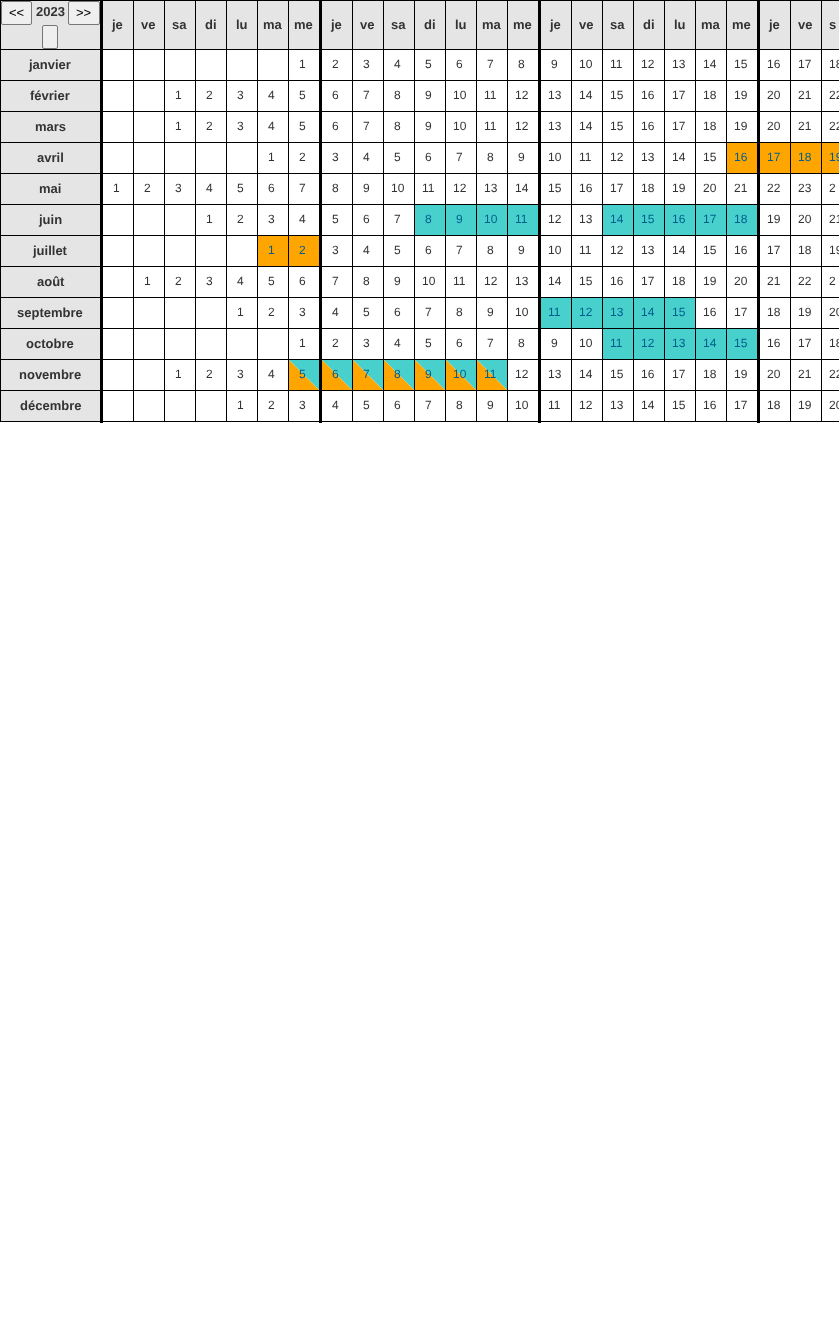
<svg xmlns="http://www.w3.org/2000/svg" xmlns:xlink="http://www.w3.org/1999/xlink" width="839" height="1330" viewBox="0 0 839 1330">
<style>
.cls-1{font:13px Liberation Sans;fill:#000000}
.cls-2{font:bold 13px Liberation Sans;fill:#333333}
.cls-3{font:12px Liberation Sans;fill:#333333}
.cls-4{font:12px Liberation Sans;fill:#005e8d}
</style>
<rect width="100%" height="100%" fill="#ffffff"/>
<rect fill="#000000" x="0" y="421" width="839" height="1"/>
<rect fill="#e5e5e5" x="1" y="1" width="838" height="48"/>
<rect fill="#000000" x="821" y="0" width="18" height="1"/>
<rect fill="#000000" x="821" y="49" width="18" height="1"/>
<rect fill="#000000" x="821" y="80" width="18" height="1"/>
<rect fill="#000000" x="821" y="111" width="18" height="1"/>
<rect fill="#000000" x="821" y="142" width="18" height="1"/>
<rect fill="#000000" x="821" y="173" width="18" height="1"/>
<rect fill="#000000" x="821" y="204" width="18" height="1"/>
<rect fill="#000000" x="821" y="235" width="18" height="1"/>
<rect fill="#000000" x="821" y="266" width="18" height="1"/>
<rect fill="#000000" x="821" y="297" width="18" height="1"/>
<rect fill="#000000" x="821" y="328" width="18" height="1"/>
<rect fill="#000000" x="821" y="359" width="18" height="1"/>
<rect fill="#000000" x="821" y="390" width="18" height="1"/>
<rect fill="#000000" x="821" y="390" width="1" height="32"/>
<rect fill="#000000" x="790" y="390" width="32" height="1"/>
<rect fill="#000000" x="821" y="359" width="1" height="32"/>
<rect fill="#000000" x="790" y="359" width="32" height="1"/>
<rect fill="#000000" x="821" y="328" width="1" height="32"/>
<rect fill="#000000" x="790" y="328" width="32" height="1"/>
<rect fill="#000000" x="821" y="297" width="1" height="32"/>
<rect fill="#000000" x="790" y="297" width="32" height="1"/>
<rect fill="#000000" x="821" y="266" width="1" height="32"/>
<rect fill="#000000" x="790" y="266" width="32" height="1"/>
<rect fill="#000000" x="821" y="235" width="1" height="32"/>
<rect fill="#000000" x="790" y="235" width="32" height="1"/>
<rect fill="#000000" x="821" y="204" width="1" height="32"/>
<rect fill="#000000" x="790" y="204" width="32" height="1"/>
<rect fill="#000000" x="821" y="173" width="1" height="32"/>
<rect fill="#000000" x="790" y="173" width="32" height="1"/>
<rect fill="#000000" x="821" y="142" width="1" height="32"/>
<rect fill="#000000" x="790" y="142" width="32" height="1"/>
<rect fill="#000000" x="821" y="111" width="1" height="32"/>
<rect fill="#000000" x="790" y="111" width="32" height="1"/>
<rect fill="#000000" x="821" y="80" width="1" height="32"/>
<rect fill="#000000" x="790" y="80" width="32" height="1"/>
<rect fill="#000000" x="821" y="49" width="1" height="32"/>
<rect fill="#000000" x="790" y="49" width="32" height="1"/>
<rect fill="#000000" x="821" y="0" width="1" height="50"/>
<rect fill="#000000" x="790" y="0" width="32" height="1"/>
<rect fill="#000000" x="790" y="390" width="1" height="32"/>
<rect fill="#000000" x="726" y="390" width="65" height="1"/>
<rect fill="#000000" x="790" y="359" width="1" height="32"/>
<rect fill="#000000" x="726" y="359" width="65" height="1"/>
<rect fill="#000000" x="790" y="328" width="1" height="32"/>
<rect fill="#000000" x="726" y="328" width="65" height="1"/>
<rect fill="#000000" x="790" y="297" width="1" height="32"/>
<rect fill="#000000" x="726" y="297" width="65" height="1"/>
<rect fill="#000000" x="790" y="266" width="1" height="32"/>
<rect fill="#000000" x="726" y="266" width="65" height="1"/>
<rect fill="#000000" x="790" y="235" width="1" height="32"/>
<rect fill="#000000" x="726" y="235" width="65" height="1"/>
<rect fill="#000000" x="790" y="204" width="1" height="32"/>
<rect fill="#000000" x="726" y="204" width="65" height="1"/>
<rect fill="#000000" x="790" y="173" width="1" height="32"/>
<rect fill="#000000" x="726" y="173" width="65" height="1"/>
<rect fill="#000000" x="790" y="142" width="1" height="32"/>
<rect fill="#000000" x="726" y="142" width="65" height="1"/>
<rect fill="#000000" x="790" y="111" width="1" height="32"/>
<rect fill="#000000" x="726" y="111" width="65" height="1"/>
<rect fill="#000000" x="790" y="80" width="1" height="32"/>
<rect fill="#000000" x="726" y="80" width="65" height="1"/>
<rect fill="#000000" x="790" y="49" width="1" height="32"/>
<rect fill="#000000" x="726" y="49" width="65" height="1"/>
<rect fill="#000000" x="790" y="0" width="1" height="50"/>
<rect fill="#000000" x="726" y="0" width="65" height="1"/>
<rect fill="#000000" x="726" y="390" width="1" height="32"/>
<rect fill="#000000" x="695" y="390" width="32" height="1"/>
<rect fill="#000000" x="726" y="359" width="1" height="32"/>
<rect fill="#000000" x="695" y="359" width="32" height="1"/>
<rect fill="#000000" x="726" y="328" width="1" height="32"/>
<rect fill="#000000" x="695" y="328" width="32" height="1"/>
<rect fill="#000000" x="726" y="297" width="1" height="32"/>
<rect fill="#000000" x="695" y="297" width="32" height="1"/>
<rect fill="#000000" x="726" y="266" width="1" height="32"/>
<rect fill="#000000" x="695" y="266" width="32" height="1"/>
<rect fill="#000000" x="726" y="235" width="1" height="32"/>
<rect fill="#000000" x="695" y="235" width="32" height="1"/>
<rect fill="#000000" x="726" y="204" width="1" height="32"/>
<rect fill="#000000" x="695" y="204" width="32" height="1"/>
<rect fill="#000000" x="726" y="173" width="1" height="32"/>
<rect fill="#000000" x="695" y="173" width="32" height="1"/>
<rect fill="#000000" x="726" y="142" width="1" height="32"/>
<rect fill="#000000" x="695" y="142" width="32" height="1"/>
<rect fill="#000000" x="726" y="111" width="1" height="32"/>
<rect fill="#000000" x="695" y="111" width="32" height="1"/>
<rect fill="#000000" x="726" y="80" width="1" height="32"/>
<rect fill="#000000" x="695" y="80" width="32" height="1"/>
<rect fill="#000000" x="726" y="49" width="1" height="32"/>
<rect fill="#000000" x="695" y="49" width="32" height="1"/>
<rect fill="#000000" x="726" y="0" width="1" height="50"/>
<rect fill="#000000" x="695" y="0" width="32" height="1"/>
<rect fill="#000000" x="695" y="390" width="1" height="32"/>
<rect fill="#000000" x="664" y="390" width="32" height="1"/>
<rect fill="#000000" x="695" y="359" width="1" height="32"/>
<rect fill="#000000" x="664" y="359" width="32" height="1"/>
<rect fill="#000000" x="695" y="328" width="1" height="32"/>
<rect fill="#000000" x="664" y="328" width="32" height="1"/>
<rect fill="#000000" x="695" y="297" width="1" height="32"/>
<rect fill="#000000" x="664" y="297" width="32" height="1"/>
<rect fill="#000000" x="695" y="266" width="1" height="32"/>
<rect fill="#000000" x="664" y="266" width="32" height="1"/>
<rect fill="#000000" x="695" y="235" width="1" height="32"/>
<rect fill="#000000" x="664" y="235" width="32" height="1"/>
<rect fill="#000000" x="695" y="204" width="1" height="32"/>
<rect fill="#000000" x="664" y="204" width="32" height="1"/>
<rect fill="#000000" x="695" y="173" width="1" height="32"/>
<rect fill="#000000" x="664" y="173" width="32" height="1"/>
<rect fill="#000000" x="695" y="142" width="1" height="32"/>
<rect fill="#000000" x="664" y="142" width="32" height="1"/>
<rect fill="#000000" x="695" y="111" width="1" height="32"/>
<rect fill="#000000" x="664" y="111" width="32" height="1"/>
<rect fill="#000000" x="695" y="80" width="1" height="32"/>
<rect fill="#000000" x="664" y="80" width="32" height="1"/>
<rect fill="#000000" x="695" y="49" width="1" height="32"/>
<rect fill="#000000" x="664" y="49" width="32" height="1"/>
<rect fill="#000000" x="695" y="0" width="1" height="50"/>
<rect fill="#000000" x="664" y="0" width="32" height="1"/>
<rect fill="#000000" x="664" y="390" width="1" height="32"/>
<rect fill="#000000" x="633" y="390" width="32" height="1"/>
<rect fill="#000000" x="664" y="359" width="1" height="32"/>
<rect fill="#000000" x="633" y="359" width="32" height="1"/>
<rect fill="#000000" x="664" y="328" width="1" height="32"/>
<rect fill="#000000" x="633" y="328" width="32" height="1"/>
<rect fill="#000000" x="664" y="297" width="1" height="32"/>
<rect fill="#000000" x="633" y="297" width="32" height="1"/>
<rect fill="#000000" x="664" y="266" width="1" height="32"/>
<rect fill="#000000" x="633" y="266" width="32" height="1"/>
<rect fill="#000000" x="664" y="235" width="1" height="32"/>
<rect fill="#000000" x="633" y="235" width="32" height="1"/>
<rect fill="#000000" x="664" y="204" width="1" height="32"/>
<rect fill="#000000" x="633" y="204" width="32" height="1"/>
<rect fill="#000000" x="664" y="173" width="1" height="32"/>
<rect fill="#000000" x="633" y="173" width="32" height="1"/>
<rect fill="#000000" x="664" y="142" width="1" height="32"/>
<rect fill="#000000" x="633" y="142" width="32" height="1"/>
<rect fill="#000000" x="664" y="111" width="1" height="32"/>
<rect fill="#000000" x="633" y="111" width="32" height="1"/>
<rect fill="#000000" x="664" y="80" width="1" height="32"/>
<rect fill="#000000" x="633" y="80" width="32" height="1"/>
<rect fill="#000000" x="664" y="49" width="1" height="32"/>
<rect fill="#000000" x="633" y="49" width="32" height="1"/>
<rect fill="#000000" x="664" y="0" width="1" height="50"/>
<rect fill="#000000" x="633" y="0" width="32" height="1"/>
<rect fill="#000000" x="633" y="390" width="1" height="32"/>
<rect fill="#000000" x="602" y="390" width="32" height="1"/>
<rect fill="#000000" x="633" y="359" width="1" height="32"/>
<rect fill="#000000" x="602" y="359" width="32" height="1"/>
<rect fill="#000000" x="633" y="328" width="1" height="32"/>
<rect fill="#000000" x="602" y="328" width="32" height="1"/>
<rect fill="#000000" x="633" y="297" width="1" height="32"/>
<rect fill="#000000" x="602" y="297" width="32" height="1"/>
<rect fill="#000000" x="633" y="266" width="1" height="32"/>
<rect fill="#000000" x="602" y="266" width="32" height="1"/>
<rect fill="#000000" x="633" y="235" width="1" height="32"/>
<rect fill="#000000" x="602" y="235" width="32" height="1"/>
<rect fill="#000000" x="633" y="204" width="1" height="32"/>
<rect fill="#000000" x="602" y="204" width="32" height="1"/>
<rect fill="#000000" x="633" y="173" width="1" height="32"/>
<rect fill="#000000" x="602" y="173" width="32" height="1"/>
<rect fill="#000000" x="633" y="142" width="1" height="32"/>
<rect fill="#000000" x="602" y="142" width="32" height="1"/>
<rect fill="#000000" x="633" y="111" width="1" height="32"/>
<rect fill="#000000" x="602" y="111" width="32" height="1"/>
<rect fill="#000000" x="633" y="80" width="1" height="32"/>
<rect fill="#000000" x="602" y="80" width="32" height="1"/>
<rect fill="#000000" x="633" y="49" width="1" height="32"/>
<rect fill="#000000" x="602" y="49" width="32" height="1"/>
<rect fill="#000000" x="633" y="0" width="1" height="50"/>
<rect fill="#000000" x="602" y="0" width="32" height="1"/>
<rect fill="#000000" x="602" y="390" width="1" height="32"/>
<rect fill="#000000" x="571" y="390" width="32" height="1"/>
<rect fill="#000000" x="602" y="359" width="1" height="32"/>
<rect fill="#000000" x="571" y="359" width="32" height="1"/>
<rect fill="#000000" x="602" y="328" width="1" height="32"/>
<rect fill="#000000" x="571" y="328" width="32" height="1"/>
<rect fill="#000000" x="602" y="297" width="1" height="32"/>
<rect fill="#000000" x="571" y="297" width="32" height="1"/>
<rect fill="#000000" x="602" y="266" width="1" height="32"/>
<rect fill="#000000" x="571" y="266" width="32" height="1"/>
<rect fill="#000000" x="602" y="235" width="1" height="32"/>
<rect fill="#000000" x="571" y="235" width="32" height="1"/>
<rect fill="#000000" x="602" y="204" width="1" height="32"/>
<rect fill="#000000" x="571" y="204" width="32" height="1"/>
<rect fill="#000000" x="602" y="173" width="1" height="32"/>
<rect fill="#000000" x="571" y="173" width="32" height="1"/>
<rect fill="#000000" x="602" y="142" width="1" height="32"/>
<rect fill="#000000" x="571" y="142" width="32" height="1"/>
<rect fill="#000000" x="602" y="111" width="1" height="32"/>
<rect fill="#000000" x="571" y="111" width="32" height="1"/>
<rect fill="#000000" x="602" y="80" width="1" height="32"/>
<rect fill="#000000" x="571" y="80" width="32" height="1"/>
<rect fill="#000000" x="602" y="49" width="1" height="32"/>
<rect fill="#000000" x="571" y="49" width="32" height="1"/>
<rect fill="#000000" x="602" y="0" width="1" height="50"/>
<rect fill="#000000" x="571" y="0" width="32" height="1"/>
<rect fill="#000000" x="571" y="390" width="1" height="32"/>
<rect fill="#000000" x="507" y="390" width="65" height="1"/>
<rect fill="#000000" x="571" y="359" width="1" height="32"/>
<rect fill="#000000" x="507" y="359" width="65" height="1"/>
<rect fill="#000000" x="571" y="328" width="1" height="32"/>
<rect fill="#000000" x="507" y="328" width="65" height="1"/>
<rect fill="#000000" x="571" y="297" width="1" height="32"/>
<rect fill="#000000" x="507" y="297" width="65" height="1"/>
<rect fill="#000000" x="571" y="266" width="1" height="32"/>
<rect fill="#000000" x="507" y="266" width="65" height="1"/>
<rect fill="#000000" x="571" y="235" width="1" height="32"/>
<rect fill="#000000" x="507" y="235" width="65" height="1"/>
<rect fill="#000000" x="571" y="204" width="1" height="32"/>
<rect fill="#000000" x="507" y="204" width="65" height="1"/>
<rect fill="#000000" x="571" y="173" width="1" height="32"/>
<rect fill="#000000" x="507" y="173" width="65" height="1"/>
<rect fill="#000000" x="571" y="142" width="1" height="32"/>
<rect fill="#000000" x="507" y="142" width="65" height="1"/>
<rect fill="#000000" x="571" y="111" width="1" height="32"/>
<rect fill="#000000" x="507" y="111" width="65" height="1"/>
<rect fill="#000000" x="571" y="80" width="1" height="32"/>
<rect fill="#000000" x="507" y="80" width="65" height="1"/>
<rect fill="#000000" x="571" y="49" width="1" height="32"/>
<rect fill="#000000" x="507" y="49" width="65" height="1"/>
<rect fill="#000000" x="571" y="0" width="1" height="50"/>
<rect fill="#000000" x="507" y="0" width="65" height="1"/>
<rect fill="#000000" x="507" y="390" width="1" height="32"/>
<rect fill="#000000" x="476" y="390" width="32" height="1"/>
<rect fill="#000000" x="507" y="359" width="1" height="32"/>
<rect fill="#000000" x="476" y="359" width="32" height="1"/>
<rect fill="#000000" x="507" y="328" width="1" height="32"/>
<rect fill="#000000" x="476" y="328" width="32" height="1"/>
<rect fill="#000000" x="507" y="297" width="1" height="32"/>
<rect fill="#000000" x="476" y="297" width="32" height="1"/>
<rect fill="#000000" x="507" y="266" width="1" height="32"/>
<rect fill="#000000" x="476" y="266" width="32" height="1"/>
<rect fill="#000000" x="507" y="235" width="1" height="32"/>
<rect fill="#000000" x="476" y="235" width="32" height="1"/>
<rect fill="#000000" x="507" y="204" width="1" height="32"/>
<rect fill="#000000" x="476" y="204" width="32" height="1"/>
<rect fill="#000000" x="507" y="173" width="1" height="32"/>
<rect fill="#000000" x="476" y="173" width="32" height="1"/>
<rect fill="#000000" x="507" y="142" width="1" height="32"/>
<rect fill="#000000" x="476" y="142" width="32" height="1"/>
<rect fill="#000000" x="507" y="111" width="1" height="32"/>
<rect fill="#000000" x="476" y="111" width="32" height="1"/>
<rect fill="#000000" x="507" y="80" width="1" height="32"/>
<rect fill="#000000" x="476" y="80" width="32" height="1"/>
<rect fill="#000000" x="507" y="49" width="1" height="32"/>
<rect fill="#000000" x="476" y="49" width="32" height="1"/>
<rect fill="#000000" x="507" y="0" width="1" height="50"/>
<rect fill="#000000" x="476" y="0" width="32" height="1"/>
<rect fill="#000000" x="476" y="390" width="1" height="32"/>
<rect fill="#000000" x="445" y="390" width="32" height="1"/>
<rect fill="#000000" x="476" y="359" width="1" height="32"/>
<rect fill="#000000" x="445" y="359" width="32" height="1"/>
<rect fill="#000000" x="476" y="328" width="1" height="32"/>
<rect fill="#000000" x="445" y="328" width="32" height="1"/>
<rect fill="#000000" x="476" y="297" width="1" height="32"/>
<rect fill="#000000" x="445" y="297" width="32" height="1"/>
<rect fill="#000000" x="476" y="266" width="1" height="32"/>
<rect fill="#000000" x="445" y="266" width="32" height="1"/>
<rect fill="#000000" x="476" y="235" width="1" height="32"/>
<rect fill="#000000" x="445" y="235" width="32" height="1"/>
<rect fill="#000000" x="476" y="204" width="1" height="32"/>
<rect fill="#000000" x="445" y="204" width="32" height="1"/>
<rect fill="#000000" x="476" y="173" width="1" height="32"/>
<rect fill="#000000" x="445" y="173" width="32" height="1"/>
<rect fill="#000000" x="476" y="142" width="1" height="32"/>
<rect fill="#000000" x="445" y="142" width="32" height="1"/>
<rect fill="#000000" x="476" y="111" width="1" height="32"/>
<rect fill="#000000" x="445" y="111" width="32" height="1"/>
<rect fill="#000000" x="476" y="80" width="1" height="32"/>
<rect fill="#000000" x="445" y="80" width="32" height="1"/>
<rect fill="#000000" x="476" y="49" width="1" height="32"/>
<rect fill="#000000" x="445" y="49" width="32" height="1"/>
<rect fill="#000000" x="476" y="0" width="1" height="50"/>
<rect fill="#000000" x="445" y="0" width="32" height="1"/>
<rect fill="#000000" x="445" y="390" width="1" height="32"/>
<rect fill="#000000" x="414" y="390" width="32" height="1"/>
<rect fill="#000000" x="445" y="359" width="1" height="32"/>
<rect fill="#000000" x="414" y="359" width="32" height="1"/>
<rect fill="#000000" x="445" y="328" width="1" height="32"/>
<rect fill="#000000" x="414" y="328" width="32" height="1"/>
<rect fill="#000000" x="445" y="297" width="1" height="32"/>
<rect fill="#000000" x="414" y="297" width="32" height="1"/>
<rect fill="#000000" x="445" y="266" width="1" height="32"/>
<rect fill="#000000" x="414" y="266" width="32" height="1"/>
<rect fill="#000000" x="445" y="235" width="1" height="32"/>
<rect fill="#000000" x="414" y="235" width="32" height="1"/>
<rect fill="#000000" x="445" y="204" width="1" height="32"/>
<rect fill="#000000" x="414" y="204" width="32" height="1"/>
<rect fill="#000000" x="445" y="173" width="1" height="32"/>
<rect fill="#000000" x="414" y="173" width="32" height="1"/>
<rect fill="#000000" x="445" y="142" width="1" height="32"/>
<rect fill="#000000" x="414" y="142" width="32" height="1"/>
<rect fill="#000000" x="445" y="111" width="1" height="32"/>
<rect fill="#000000" x="414" y="111" width="32" height="1"/>
<rect fill="#000000" x="445" y="80" width="1" height="32"/>
<rect fill="#000000" x="414" y="80" width="32" height="1"/>
<rect fill="#000000" x="445" y="49" width="1" height="32"/>
<rect fill="#000000" x="414" y="49" width="32" height="1"/>
<rect fill="#000000" x="445" y="0" width="1" height="50"/>
<rect fill="#000000" x="414" y="0" width="32" height="1"/>
<rect fill="#000000" x="414" y="390" width="1" height="32"/>
<rect fill="#000000" x="383" y="390" width="32" height="1"/>
<rect fill="#000000" x="414" y="359" width="1" height="32"/>
<rect fill="#000000" x="383" y="359" width="32" height="1"/>
<rect fill="#000000" x="414" y="328" width="1" height="32"/>
<rect fill="#000000" x="383" y="328" width="32" height="1"/>
<rect fill="#000000" x="414" y="297" width="1" height="32"/>
<rect fill="#000000" x="383" y="297" width="32" height="1"/>
<rect fill="#000000" x="414" y="266" width="1" height="32"/>
<rect fill="#000000" x="383" y="266" width="32" height="1"/>
<rect fill="#000000" x="414" y="235" width="1" height="32"/>
<rect fill="#000000" x="383" y="235" width="32" height="1"/>
<rect fill="#000000" x="414" y="204" width="1" height="32"/>
<rect fill="#000000" x="383" y="204" width="32" height="1"/>
<rect fill="#000000" x="414" y="173" width="1" height="32"/>
<rect fill="#000000" x="383" y="173" width="32" height="1"/>
<rect fill="#000000" x="414" y="142" width="1" height="32"/>
<rect fill="#000000" x="383" y="142" width="32" height="1"/>
<rect fill="#000000" x="414" y="111" width="1" height="32"/>
<rect fill="#000000" x="383" y="111" width="32" height="1"/>
<rect fill="#000000" x="414" y="80" width="1" height="32"/>
<rect fill="#000000" x="383" y="80" width="32" height="1"/>
<rect fill="#000000" x="414" y="49" width="1" height="32"/>
<rect fill="#000000" x="383" y="49" width="32" height="1"/>
<rect fill="#000000" x="414" y="0" width="1" height="50"/>
<rect fill="#000000" x="383" y="0" width="32" height="1"/>
<rect fill="#000000" x="383" y="390" width="1" height="32"/>
<rect fill="#000000" x="352" y="390" width="32" height="1"/>
<rect fill="#000000" x="383" y="359" width="1" height="32"/>
<rect fill="#000000" x="352" y="359" width="32" height="1"/>
<rect fill="#000000" x="383" y="328" width="1" height="32"/>
<rect fill="#000000" x="352" y="328" width="32" height="1"/>
<rect fill="#000000" x="383" y="297" width="1" height="32"/>
<rect fill="#000000" x="352" y="297" width="32" height="1"/>
<rect fill="#000000" x="383" y="266" width="1" height="32"/>
<rect fill="#000000" x="352" y="266" width="32" height="1"/>
<rect fill="#000000" x="383" y="235" width="1" height="32"/>
<rect fill="#000000" x="352" y="235" width="32" height="1"/>
<rect fill="#000000" x="383" y="204" width="1" height="32"/>
<rect fill="#000000" x="352" y="204" width="32" height="1"/>
<rect fill="#000000" x="383" y="173" width="1" height="32"/>
<rect fill="#000000" x="352" y="173" width="32" height="1"/>
<rect fill="#000000" x="383" y="142" width="1" height="32"/>
<rect fill="#000000" x="352" y="142" width="32" height="1"/>
<rect fill="#000000" x="383" y="111" width="1" height="32"/>
<rect fill="#000000" x="352" y="111" width="32" height="1"/>
<rect fill="#000000" x="383" y="80" width="1" height="32"/>
<rect fill="#000000" x="352" y="80" width="32" height="1"/>
<rect fill="#000000" x="383" y="49" width="1" height="32"/>
<rect fill="#000000" x="352" y="49" width="32" height="1"/>
<rect fill="#000000" x="383" y="0" width="1" height="50"/>
<rect fill="#000000" x="352" y="0" width="32" height="1"/>
<rect fill="#000000" x="352" y="390" width="1" height="32"/>
<rect fill="#000000" x="288" y="390" width="65" height="1"/>
<rect fill="#000000" x="352" y="359" width="1" height="32"/>
<rect fill="#000000" x="288" y="359" width="65" height="1"/>
<rect fill="#000000" x="352" y="328" width="1" height="32"/>
<rect fill="#000000" x="288" y="328" width="65" height="1"/>
<rect fill="#000000" x="352" y="297" width="1" height="32"/>
<rect fill="#000000" x="288" y="297" width="65" height="1"/>
<rect fill="#000000" x="352" y="266" width="1" height="32"/>
<rect fill="#000000" x="288" y="266" width="65" height="1"/>
<rect fill="#000000" x="352" y="235" width="1" height="32"/>
<rect fill="#000000" x="288" y="235" width="65" height="1"/>
<rect fill="#000000" x="352" y="204" width="1" height="32"/>
<rect fill="#000000" x="288" y="204" width="65" height="1"/>
<rect fill="#000000" x="352" y="173" width="1" height="32"/>
<rect fill="#000000" x="288" y="173" width="65" height="1"/>
<rect fill="#000000" x="352" y="142" width="1" height="32"/>
<rect fill="#000000" x="288" y="142" width="65" height="1"/>
<rect fill="#000000" x="352" y="111" width="1" height="32"/>
<rect fill="#000000" x="288" y="111" width="65" height="1"/>
<rect fill="#000000" x="352" y="80" width="1" height="32"/>
<rect fill="#000000" x="288" y="80" width="65" height="1"/>
<rect fill="#000000" x="352" y="49" width="1" height="32"/>
<rect fill="#000000" x="288" y="49" width="65" height="1"/>
<rect fill="#000000" x="352" y="0" width="1" height="50"/>
<rect fill="#000000" x="288" y="0" width="65" height="1"/>
<rect fill="#000000" x="288" y="390" width="1" height="32"/>
<rect fill="#000000" x="257" y="390" width="32" height="1"/>
<rect fill="#000000" x="288" y="359" width="1" height="32"/>
<rect fill="#000000" x="257" y="359" width="32" height="1"/>
<rect fill="#000000" x="288" y="328" width="1" height="32"/>
<rect fill="#000000" x="257" y="328" width="32" height="1"/>
<rect fill="#000000" x="288" y="297" width="1" height="32"/>
<rect fill="#000000" x="257" y="297" width="32" height="1"/>
<rect fill="#000000" x="288" y="266" width="1" height="32"/>
<rect fill="#000000" x="257" y="266" width="32" height="1"/>
<rect fill="#000000" x="288" y="235" width="1" height="32"/>
<rect fill="#000000" x="257" y="235" width="32" height="1"/>
<rect fill="#000000" x="288" y="204" width="1" height="32"/>
<rect fill="#000000" x="257" y="204" width="32" height="1"/>
<rect fill="#000000" x="288" y="173" width="1" height="32"/>
<rect fill="#000000" x="257" y="173" width="32" height="1"/>
<rect fill="#000000" x="288" y="142" width="1" height="32"/>
<rect fill="#000000" x="257" y="142" width="32" height="1"/>
<rect fill="#000000" x="288" y="111" width="1" height="32"/>
<rect fill="#000000" x="257" y="111" width="32" height="1"/>
<rect fill="#000000" x="288" y="80" width="1" height="32"/>
<rect fill="#000000" x="257" y="80" width="32" height="1"/>
<rect fill="#000000" x="288" y="49" width="1" height="32"/>
<rect fill="#000000" x="257" y="49" width="32" height="1"/>
<rect fill="#000000" x="288" y="0" width="1" height="50"/>
<rect fill="#000000" x="257" y="0" width="32" height="1"/>
<rect fill="#000000" x="257" y="390" width="1" height="32"/>
<rect fill="#000000" x="226" y="390" width="32" height="1"/>
<rect fill="#000000" x="257" y="359" width="1" height="32"/>
<rect fill="#000000" x="226" y="359" width="32" height="1"/>
<rect fill="#000000" x="257" y="328" width="1" height="32"/>
<rect fill="#000000" x="226" y="328" width="32" height="1"/>
<rect fill="#000000" x="257" y="297" width="1" height="32"/>
<rect fill="#000000" x="226" y="297" width="32" height="1"/>
<rect fill="#000000" x="257" y="266" width="1" height="32"/>
<rect fill="#000000" x="226" y="266" width="32" height="1"/>
<rect fill="#000000" x="257" y="235" width="1" height="32"/>
<rect fill="#000000" x="226" y="235" width="32" height="1"/>
<rect fill="#000000" x="257" y="204" width="1" height="32"/>
<rect fill="#000000" x="226" y="204" width="32" height="1"/>
<rect fill="#000000" x="257" y="173" width="1" height="32"/>
<rect fill="#000000" x="226" y="173" width="32" height="1"/>
<rect fill="#000000" x="257" y="142" width="1" height="32"/>
<rect fill="#000000" x="226" y="142" width="32" height="1"/>
<rect fill="#000000" x="257" y="111" width="1" height="32"/>
<rect fill="#000000" x="226" y="111" width="32" height="1"/>
<rect fill="#000000" x="257" y="80" width="1" height="32"/>
<rect fill="#000000" x="226" y="80" width="32" height="1"/>
<rect fill="#000000" x="257" y="49" width="1" height="32"/>
<rect fill="#000000" x="226" y="49" width="32" height="1"/>
<rect fill="#000000" x="257" y="0" width="1" height="50"/>
<rect fill="#000000" x="226" y="0" width="32" height="1"/>
<rect fill="#000000" x="226" y="390" width="1" height="32"/>
<rect fill="#000000" x="195" y="390" width="32" height="1"/>
<rect fill="#000000" x="226" y="359" width="1" height="32"/>
<rect fill="#000000" x="195" y="359" width="32" height="1"/>
<rect fill="#000000" x="226" y="328" width="1" height="32"/>
<rect fill="#000000" x="195" y="328" width="32" height="1"/>
<rect fill="#000000" x="226" y="297" width="1" height="32"/>
<rect fill="#000000" x="195" y="297" width="32" height="1"/>
<rect fill="#000000" x="226" y="266" width="1" height="32"/>
<rect fill="#000000" x="195" y="266" width="32" height="1"/>
<rect fill="#000000" x="226" y="235" width="1" height="32"/>
<rect fill="#000000" x="195" y="235" width="32" height="1"/>
<rect fill="#000000" x="226" y="204" width="1" height="32"/>
<rect fill="#000000" x="195" y="204" width="32" height="1"/>
<rect fill="#000000" x="226" y="173" width="1" height="32"/>
<rect fill="#000000" x="195" y="173" width="32" height="1"/>
<rect fill="#000000" x="226" y="142" width="1" height="32"/>
<rect fill="#000000" x="195" y="142" width="32" height="1"/>
<rect fill="#000000" x="226" y="111" width="1" height="32"/>
<rect fill="#000000" x="195" y="111" width="32" height="1"/>
<rect fill="#000000" x="226" y="80" width="1" height="32"/>
<rect fill="#000000" x="195" y="80" width="32" height="1"/>
<rect fill="#000000" x="226" y="49" width="1" height="32"/>
<rect fill="#000000" x="195" y="49" width="32" height="1"/>
<rect fill="#000000" x="226" y="0" width="1" height="50"/>
<rect fill="#000000" x="195" y="0" width="32" height="1"/>
<rect fill="#000000" x="195" y="390" width="1" height="32"/>
<rect fill="#000000" x="164" y="390" width="32" height="1"/>
<rect fill="#000000" x="195" y="359" width="1" height="32"/>
<rect fill="#000000" x="164" y="359" width="32" height="1"/>
<rect fill="#000000" x="195" y="328" width="1" height="32"/>
<rect fill="#000000" x="164" y="328" width="32" height="1"/>
<rect fill="#000000" x="195" y="297" width="1" height="32"/>
<rect fill="#000000" x="164" y="297" width="32" height="1"/>
<rect fill="#000000" x="195" y="266" width="1" height="32"/>
<rect fill="#000000" x="164" y="266" width="32" height="1"/>
<rect fill="#000000" x="195" y="235" width="1" height="32"/>
<rect fill="#000000" x="164" y="235" width="32" height="1"/>
<rect fill="#000000" x="195" y="204" width="1" height="32"/>
<rect fill="#000000" x="164" y="204" width="32" height="1"/>
<rect fill="#000000" x="195" y="173" width="1" height="32"/>
<rect fill="#000000" x="164" y="173" width="32" height="1"/>
<rect fill="#000000" x="195" y="142" width="1" height="32"/>
<rect fill="#000000" x="164" y="142" width="32" height="1"/>
<rect fill="#000000" x="195" y="111" width="1" height="32"/>
<rect fill="#000000" x="164" y="111" width="32" height="1"/>
<rect fill="#000000" x="195" y="80" width="1" height="32"/>
<rect fill="#000000" x="164" y="80" width="32" height="1"/>
<rect fill="#000000" x="195" y="49" width="1" height="32"/>
<rect fill="#000000" x="164" y="49" width="32" height="1"/>
<rect fill="#000000" x="195" y="0" width="1" height="50"/>
<rect fill="#000000" x="164" y="0" width="32" height="1"/>
<rect fill="#000000" x="164" y="390" width="1" height="32"/>
<rect fill="#000000" x="133" y="390" width="32" height="1"/>
<rect fill="#000000" x="164" y="359" width="1" height="32"/>
<rect fill="#000000" x="133" y="359" width="32" height="1"/>
<rect fill="#000000" x="164" y="328" width="1" height="32"/>
<rect fill="#000000" x="133" y="328" width="32" height="1"/>
<rect fill="#000000" x="164" y="297" width="1" height="32"/>
<rect fill="#000000" x="133" y="297" width="32" height="1"/>
<rect fill="#000000" x="164" y="266" width="1" height="32"/>
<rect fill="#000000" x="133" y="266" width="32" height="1"/>
<rect fill="#000000" x="164" y="235" width="1" height="32"/>
<rect fill="#000000" x="133" y="235" width="32" height="1"/>
<rect fill="#000000" x="164" y="204" width="1" height="32"/>
<rect fill="#000000" x="133" y="204" width="32" height="1"/>
<rect fill="#000000" x="164" y="173" width="1" height="32"/>
<rect fill="#000000" x="133" y="173" width="32" height="1"/>
<rect fill="#000000" x="164" y="142" width="1" height="32"/>
<rect fill="#000000" x="133" y="142" width="32" height="1"/>
<rect fill="#000000" x="164" y="111" width="1" height="32"/>
<rect fill="#000000" x="133" y="111" width="32" height="1"/>
<rect fill="#000000" x="164" y="80" width="1" height="32"/>
<rect fill="#000000" x="133" y="80" width="32" height="1"/>
<rect fill="#000000" x="164" y="49" width="1" height="32"/>
<rect fill="#000000" x="133" y="49" width="32" height="1"/>
<rect fill="#000000" x="164" y="0" width="1" height="50"/>
<rect fill="#000000" x="133" y="0" width="32" height="1"/>
<rect fill="#000000" x="133" y="390" width="1" height="32"/>
<rect fill="#000000" x="0" y="390" width="134" height="1"/>
<rect fill="#000000" x="133" y="359" width="1" height="32"/>
<rect fill="#000000" x="0" y="359" width="134" height="1"/>
<rect fill="#000000" x="133" y="328" width="1" height="32"/>
<rect fill="#000000" x="0" y="328" width="134" height="1"/>
<rect fill="#000000" x="133" y="297" width="1" height="32"/>
<rect fill="#000000" x="0" y="297" width="134" height="1"/>
<rect fill="#000000" x="133" y="266" width="1" height="32"/>
<rect fill="#000000" x="0" y="266" width="134" height="1"/>
<rect fill="#000000" x="133" y="235" width="1" height="32"/>
<rect fill="#000000" x="0" y="235" width="134" height="1"/>
<rect fill="#000000" x="133" y="204" width="1" height="32"/>
<rect fill="#000000" x="0" y="204" width="134" height="1"/>
<rect fill="#000000" x="133" y="173" width="1" height="32"/>
<rect fill="#000000" x="0" y="173" width="134" height="1"/>
<rect fill="#000000" x="133" y="142" width="1" height="32"/>
<rect fill="#000000" x="0" y="142" width="134" height="1"/>
<rect fill="#000000" x="133" y="111" width="1" height="32"/>
<rect fill="#000000" x="0" y="111" width="134" height="1"/>
<rect fill="#000000" x="133" y="80" width="1" height="32"/>
<rect fill="#000000" x="0" y="80" width="134" height="1"/>
<rect fill="#000000" x="133" y="49" width="1" height="32"/>
<rect fill="#000000" x="0" y="49" width="134" height="1"/>
<rect fill="#000000" x="133" y="0" width="1" height="50"/>
<rect fill="#000000" x="0" y="0" width="134" height="1"/>
<rect fill="#000000" x="0" y="390" width="1" height="32"/>
<rect fill="#000000" x="0" y="359" width="1" height="32"/>
<rect fill="#000000" x="0" y="328" width="1" height="32"/>
<rect fill="#000000" x="0" y="297" width="1" height="32"/>
<rect fill="#000000" x="0" y="266" width="1" height="32"/>
<rect fill="#000000" x="0" y="235" width="1" height="32"/>
<rect fill="#000000" x="0" y="204" width="1" height="32"/>
<rect fill="#000000" x="0" y="173" width="1" height="32"/>
<rect fill="#000000" x="0" y="142" width="1" height="32"/>
<rect fill="#000000" x="0" y="111" width="1" height="32"/>
<rect fill="#000000" x="0" y="80" width="1" height="32"/>
<rect fill="#000000" x="0" y="49" width="1" height="32"/>
<rect fill="#000000" x="0" y="0" width="1" height="50"/>
<rect fill="#efefef" stroke="#767676" x="1.5" y="1.5" width="30" height="23" rx="1.5"/>
<rect fill="#efefef" stroke="#767676" x="68.5" y="1.5" width="31" height="23" rx="1.5"/>
<rect fill="#efefef" stroke="#767676" x="42.5" y="25.5" width="15" height="23" rx="1.5"/>
<rect fill="#e5e5e5" x="1" y="50" width="99" height="30"/>
<rect fill="#e5e5e5" x="1" y="81" width="99" height="30"/>
<rect fill="#e5e5e5" x="1" y="112" width="99" height="30"/>
<rect fill="#e5e5e5" x="1" y="143" width="99" height="30"/>
<rect fill="#ffa500" x="727" y="143" width="30" height="30"/>
<rect fill="#ffa500" x="760" y="143" width="30" height="30"/>
<rect fill="#ffa500" x="791" y="143" width="30" height="30"/>
<rect fill="#ffa500" x="822" y="143" width="17" height="30"/>
<rect fill="#e5e5e5" x="1" y="174" width="99" height="30"/>
<rect fill="#e5e5e5" x="1" y="205" width="99" height="30"/>
<rect fill="#48d1cc" x="415" y="205" width="30" height="30"/>
<rect fill="#48d1cc" x="446" y="205" width="30" height="30"/>
<rect fill="#48d1cc" x="477" y="205" width="30" height="30"/>
<rect fill="#48d1cc" x="508" y="205" width="30" height="30"/>
<rect fill="#48d1cc" x="603" y="205" width="30" height="30"/>
<rect fill="#48d1cc" x="634" y="205" width="30" height="30"/>
<rect fill="#48d1cc" x="665" y="205" width="30" height="30"/>
<rect fill="#48d1cc" x="696" y="205" width="30" height="30"/>
<rect fill="#48d1cc" x="727" y="205" width="30" height="30"/>
<rect fill="#e5e5e5" x="1" y="236" width="99" height="30"/>
<rect fill="#ffa500" x="258" y="236" width="30" height="30"/>
<rect fill="#ffa500" x="289" y="236" width="30" height="30"/>
<rect fill="#e5e5e5" x="1" y="267" width="99" height="30"/>
<rect fill="#e5e5e5" x="1" y="298" width="99" height="30"/>
<rect fill="#48d1cc" x="541" y="298" width="30" height="30"/>
<rect fill="#48d1cc" x="572" y="298" width="30" height="30"/>
<rect fill="#48d1cc" x="603" y="298" width="30" height="30"/>
<rect fill="#48d1cc" x="634" y="298" width="30" height="30"/>
<rect fill="#48d1cc" x="665" y="298" width="30" height="30"/>
<rect fill="#e5e5e5" x="1" y="329" width="99" height="30"/>
<rect fill="#48d1cc" x="603" y="329" width="30" height="30"/>
<rect fill="#48d1cc" x="634" y="329" width="30" height="30"/>
<rect fill="#48d1cc" x="665" y="329" width="30" height="30"/>
<rect fill="#48d1cc" x="696" y="329" width="30" height="30"/>
<rect fill="#48d1cc" x="727" y="329" width="30" height="30"/>
<rect fill="#e5e5e5" x="1" y="360" width="99" height="30"/>
<path fill="#48d1cc" d="M289 360H319V390Z"/>
<path fill="#ffa500" d="M289 390V360L319 390Z"/>
<path fill="#48d1cc" d="M322 360H352V390Z"/>
<path fill="#ffa500" d="M322 390V360L352 390Z"/>
<path fill="#48d1cc" d="M353 360H383V390Z"/>
<path fill="#ffa500" d="M353 390V360L383 390Z"/>
<path fill="#48d1cc" d="M384 360H414V390Z"/>
<path fill="#ffa500" d="M384 390V360L414 390Z"/>
<path fill="#48d1cc" d="M415 360H445V390Z"/>
<path fill="#ffa500" d="M415 390V360L445 390Z"/>
<path fill="#48d1cc" d="M446 360H476V390Z"/>
<path fill="#ffa500" d="M446 390V360L476 390Z"/>
<path fill="#48d1cc" d="M477 360H507V390Z"/>
<path fill="#ffa500" d="M477 390V360L507 390Z"/>
<rect fill="#000000" x="100" y="0" width="3" height="423"/>
<rect fill="#e5e5e5" x="1" y="391" width="99" height="30"/>
<rect fill="#000000" x="319" y="0" width="3" height="423"/>
<rect fill="#000000" x="538" y="0" width="3" height="423"/>
<rect fill="#000000" x="757" y="0" width="3" height="423"/>
<text class="cls-1" x="9" y="17">&lt;&lt;</text>
<text class="cls-2" x="36" y="16">2023</text>
<text class="cls-1" x="76" y="17">&gt;&gt;</text>
<text class="cls-2" x="112" y="29">je</text>
<text class="cls-2" x="141" y="29">ve</text>
<text class="cls-2" x="172" y="29">sa</text>
<text class="cls-2" x="205" y="29">di</text>
<text class="cls-2" x="236" y="29">lu</text>
<text class="cls-2" x="263" y="29">ma</text>
<text class="cls-2" x="294" y="29">me</text>
<text class="cls-2" x="331" y="29">je</text>
<text class="cls-2" x="360" y="29">ve</text>
<text class="cls-2" x="391" y="29">sa</text>
<text class="cls-2" x="424" y="29">di</text>
<text class="cls-2" x="455" y="29">lu</text>
<text class="cls-2" x="482" y="29">ma</text>
<text class="cls-2" x="513" y="29">me</text>
<text class="cls-2" x="550" y="29">je</text>
<text class="cls-2" x="579" y="29">ve</text>
<text class="cls-2" x="610" y="29">sa</text>
<text class="cls-2" x="643" y="29">di</text>
<text class="cls-2" x="674" y="29">lu</text>
<text class="cls-2" x="701" y="29">ma</text>
<text class="cls-2" x="732" y="29">me</text>
<text class="cls-2" x="769" y="29">je</text>
<text class="cls-2" x="798" y="29">ve</text>
<text class="cls-2" x="829" y="29">s</text>
<text class="cls-2" x="29" y="69">janvier</text>
<text class="cls-3" x="299" y="68">1</text>
<text class="cls-3" x="332" y="68">2</text>
<text class="cls-3" x="363" y="68">3</text>
<text class="cls-3" x="394" y="68">4</text>
<text class="cls-3" x="425" y="68">5</text>
<text class="cls-3" x="456" y="68">6</text>
<text class="cls-3" x="487" y="68">7</text>
<text class="cls-3" x="518" y="68">8</text>
<text class="cls-3" x="551" y="68">9</text>
<text class="cls-3" x="579" y="68">10</text>
<text class="cls-3" x="610" y="68">11</text>
<text class="cls-3" x="641" y="68">12</text>
<text class="cls-3" x="672" y="68">13</text>
<text class="cls-3" x="703" y="68">14</text>
<text class="cls-3" x="734" y="68">15</text>
<text class="cls-3" x="767" y="68">16</text>
<text class="cls-3" x="798" y="68">17</text>
<text class="cls-3" x="829" y="68">18</text>
<text class="cls-2" x="30" y="100">février</text>
<text class="cls-3" x="175" y="99">1</text>
<text class="cls-3" x="206" y="99">2</text>
<text class="cls-3" x="237" y="99">3</text>
<text class="cls-3" x="268" y="99">4</text>
<text class="cls-3" x="299" y="99">5</text>
<text class="cls-3" x="332" y="99">6</text>
<text class="cls-3" x="363" y="99">7</text>
<text class="cls-3" x="394" y="99">8</text>
<text class="cls-3" x="425" y="99">9</text>
<text class="cls-3" x="453" y="99">10</text>
<text class="cls-3" x="484" y="99">11</text>
<text class="cls-3" x="515" y="99">12</text>
<text class="cls-3" x="548" y="99">13</text>
<text class="cls-3" x="579" y="99">14</text>
<text class="cls-3" x="610" y="99">15</text>
<text class="cls-3" x="641" y="99">16</text>
<text class="cls-3" x="672" y="99">17</text>
<text class="cls-3" x="703" y="99">18</text>
<text class="cls-3" x="734" y="99">19</text>
<text class="cls-3" x="767" y="99">20</text>
<text class="cls-3" x="798" y="99">21</text>
<text class="cls-3" x="829" y="99">22</text>
<text class="cls-3" x="175" y="130">1</text>
<text class="cls-3" x="206" y="130">2</text>
<text class="cls-3" x="237" y="130">3</text>
<text class="cls-3" x="268" y="130">4</text>
<text class="cls-3" x="299" y="130">5</text>
<text class="cls-3" x="332" y="130">6</text>
<text class="cls-3" x="363" y="130">7</text>
<text class="cls-3" x="394" y="130">8</text>
<text class="cls-3" x="425" y="130">9</text>
<text class="cls-3" x="453" y="130">10</text>
<text class="cls-3" x="484" y="130">11</text>
<text class="cls-3" x="515" y="130">12</text>
<text class="cls-3" x="548" y="130">13</text>
<text class="cls-3" x="579" y="130">14</text>
<text class="cls-3" x="610" y="130">15</text>
<text class="cls-3" x="641" y="130">16</text>
<text class="cls-3" x="672" y="130">17</text>
<text class="cls-3" x="703" y="130">18</text>
<text class="cls-3" x="734" y="130">19</text>
<text class="cls-3" x="767" y="130">20</text>
<text class="cls-3" x="798" y="130">21</text>
<text class="cls-3" x="829" y="130">22</text>
<text class="cls-2" x="35" y="131">mars</text>
<text class="cls-2" x="37" y="162">avril</text>
<text class="cls-3" x="268" y="161">1</text>
<text class="cls-3" x="299" y="161">2</text>
<text class="cls-3" x="332" y="161">3</text>
<text class="cls-3" x="363" y="161">4</text>
<text class="cls-3" x="394" y="161">5</text>
<text class="cls-3" x="425" y="161">6</text>
<text class="cls-3" x="456" y="161">7</text>
<text class="cls-3" x="487" y="161">8</text>
<text class="cls-3" x="518" y="161">9</text>
<text class="cls-3" x="548" y="161">10</text>
<text class="cls-3" x="579" y="161">11</text>
<text class="cls-3" x="610" y="161">12</text>
<text class="cls-3" x="641" y="161">13</text>
<text class="cls-3" x="672" y="161">14</text>
<text class="cls-3" x="703" y="161">15</text>
<text class="cls-4" x="734" y="161">16</text>
<text class="cls-4" x="767" y="161">17</text>
<text class="cls-4" x="798" y="161">18</text>
<text class="cls-4" x="829" y="161">19</text>
<text class="cls-2" x="39" y="193">mai</text>
<text class="cls-3" x="113" y="192">1</text>
<text class="cls-3" x="144" y="192">2</text>
<text class="cls-3" x="175" y="192">3</text>
<text class="cls-3" x="206" y="192">4</text>
<text class="cls-3" x="237" y="192">5</text>
<text class="cls-3" x="268" y="192">6</text>
<text class="cls-3" x="299" y="192">7</text>
<text class="cls-3" x="332" y="192">8</text>
<text class="cls-3" x="363" y="192">9</text>
<text class="cls-3" x="391" y="192">10</text>
<text class="cls-3" x="422" y="192">11</text>
<text class="cls-3" x="453" y="192">12</text>
<text class="cls-3" x="484" y="192">13</text>
<text class="cls-3" x="515" y="192">14</text>
<text class="cls-3" x="548" y="192">15</text>
<text class="cls-3" x="579" y="192">16</text>
<text class="cls-3" x="610" y="192">17</text>
<text class="cls-3" x="641" y="192">18</text>
<text class="cls-3" x="672" y="192">19</text>
<text class="cls-3" x="703" y="192">20</text>
<text class="cls-3" x="734" y="192">21</text>
<text class="cls-3" x="767" y="192">22</text>
<text class="cls-3" x="798" y="192">23</text>
<text class="cls-3" x="829" y="192">2</text>
<text class="cls-2" x="39" y="224">juin</text>
<text class="cls-3" x="206" y="223">1</text>
<text class="cls-3" x="237" y="223">2</text>
<text class="cls-3" x="268" y="223">3</text>
<text class="cls-3" x="299" y="223">4</text>
<text class="cls-3" x="332" y="223">5</text>
<text class="cls-3" x="363" y="223">6</text>
<text class="cls-3" x="394" y="223">7</text>
<text class="cls-4" x="425" y="223">8</text>
<text class="cls-4" x="456" y="223">9</text>
<text class="cls-4" x="484" y="223">10</text>
<text class="cls-4" x="515" y="223">11</text>
<text class="cls-3" x="548" y="223">12</text>
<text class="cls-3" x="579" y="223">13</text>
<text class="cls-4" x="610" y="223">14</text>
<text class="cls-4" x="641" y="223">15</text>
<text class="cls-4" x="672" y="223">16</text>
<text class="cls-4" x="703" y="223">17</text>
<text class="cls-4" x="734" y="223">18</text>
<text class="cls-3" x="767" y="223">19</text>
<text class="cls-3" x="798" y="223">20</text>
<text class="cls-3" x="829" y="223">21</text>
<text class="cls-2" x="33" y="255">juillet</text>
<text class="cls-4" x="268" y="254">1</text>
<text class="cls-4" x="299" y="254">2</text>
<text class="cls-3" x="332" y="254">3</text>
<text class="cls-3" x="363" y="254">4</text>
<text class="cls-3" x="394" y="254">5</text>
<text class="cls-3" x="425" y="254">6</text>
<text class="cls-3" x="456" y="254">7</text>
<text class="cls-3" x="487" y="254">8</text>
<text class="cls-3" x="518" y="254">9</text>
<text class="cls-3" x="548" y="254">10</text>
<text class="cls-3" x="579" y="254">11</text>
<text class="cls-3" x="610" y="254">12</text>
<text class="cls-3" x="641" y="254">13</text>
<text class="cls-3" x="672" y="254">14</text>
<text class="cls-3" x="703" y="254">15</text>
<text class="cls-3" x="734" y="254">16</text>
<text class="cls-3" x="767" y="254">17</text>
<text class="cls-3" x="798" y="254">18</text>
<text class="cls-3" x="829" y="254">19</text>
<text class="cls-2" x="37" y="286">août</text>
<text class="cls-3" x="144" y="285">1</text>
<text class="cls-3" x="175" y="285">2</text>
<text class="cls-3" x="206" y="285">3</text>
<text class="cls-3" x="237" y="285">4</text>
<text class="cls-3" x="268" y="285">5</text>
<text class="cls-3" x="299" y="285">6</text>
<text class="cls-3" x="332" y="285">7</text>
<text class="cls-3" x="363" y="285">8</text>
<text class="cls-3" x="394" y="285">9</text>
<text class="cls-3" x="422" y="285">10</text>
<text class="cls-3" x="453" y="285">11</text>
<text class="cls-3" x="484" y="285">12</text>
<text class="cls-3" x="515" y="285">13</text>
<text class="cls-3" x="548" y="285">14</text>
<text class="cls-3" x="579" y="285">15</text>
<text class="cls-3" x="610" y="285">16</text>
<text class="cls-3" x="641" y="285">17</text>
<text class="cls-3" x="672" y="285">18</text>
<text class="cls-3" x="703" y="285">19</text>
<text class="cls-3" x="734" y="285">20</text>
<text class="cls-3" x="767" y="285">21</text>
<text class="cls-3" x="798" y="285">22</text>
<text class="cls-3" x="829" y="285">2</text>
<text class="cls-2" x="17" y="317">septembre</text>
<text class="cls-3" x="237" y="316">1</text>
<text class="cls-3" x="268" y="316">2</text>
<text class="cls-3" x="299" y="316">3</text>
<text class="cls-3" x="332" y="316">4</text>
<text class="cls-3" x="363" y="316">5</text>
<text class="cls-3" x="394" y="316">6</text>
<text class="cls-3" x="425" y="316">7</text>
<text class="cls-3" x="456" y="316">8</text>
<text class="cls-3" x="487" y="316">9</text>
<text class="cls-3" x="515" y="316">10</text>
<text class="cls-4" x="548" y="316">11</text>
<text class="cls-4" x="579" y="316">12</text>
<text class="cls-4" x="610" y="316">13</text>
<text class="cls-4" x="641" y="316">14</text>
<text class="cls-4" x="672" y="316">15</text>
<text class="cls-3" x="703" y="316">16</text>
<text class="cls-3" x="734" y="316">17</text>
<text class="cls-3" x="767" y="316">18</text>
<text class="cls-3" x="798" y="316">19</text>
<text class="cls-3" x="829" y="316">20</text>
<text class="cls-2" x="26" y="348">octobre</text>
<text class="cls-3" x="299" y="347">1</text>
<text class="cls-3" x="332" y="347">2</text>
<text class="cls-3" x="363" y="347">3</text>
<text class="cls-3" x="394" y="347">4</text>
<text class="cls-3" x="425" y="347">5</text>
<text class="cls-3" x="456" y="347">6</text>
<text class="cls-3" x="487" y="347">7</text>
<text class="cls-3" x="518" y="347">8</text>
<text class="cls-3" x="551" y="347">9</text>
<text class="cls-3" x="579" y="347">10</text>
<text class="cls-4" x="610" y="347">11</text>
<text class="cls-4" x="641" y="347">12</text>
<text class="cls-4" x="672" y="347">13</text>
<text class="cls-4" x="703" y="347">14</text>
<text class="cls-4" x="734" y="347">15</text>
<text class="cls-3" x="767" y="347">16</text>
<text class="cls-3" x="798" y="347">17</text>
<text class="cls-3" x="829" y="347">18</text>
<text class="cls-2" x="19" y="379">novembre</text>
<text class="cls-3" x="175" y="378">1</text>
<text class="cls-3" x="206" y="378">2</text>
<text class="cls-3" x="237" y="378">3</text>
<text class="cls-3" x="268" y="378">4</text>
<text class="cls-4" x="299" y="378">5</text>
<text class="cls-4" x="332" y="378">6</text>
<text class="cls-4" x="363" y="378">7</text>
<text class="cls-4" x="394" y="378">8</text>
<text class="cls-4" x="425" y="378">9</text>
<text class="cls-4" x="453" y="378">10</text>
<text class="cls-4" x="484" y="378">11</text>
<text class="cls-3" x="515" y="378">12</text>
<text class="cls-3" x="548" y="378">13</text>
<text class="cls-3" x="579" y="378">14</text>
<text class="cls-3" x="610" y="378">15</text>
<text class="cls-3" x="641" y="378">16</text>
<text class="cls-3" x="672" y="378">17</text>
<text class="cls-3" x="703" y="378">18</text>
<text class="cls-3" x="734" y="378">19</text>
<text class="cls-3" x="767" y="378">20</text>
<text class="cls-3" x="798" y="378">21</text>
<text class="cls-3" x="829" y="378">22</text>
<text class="cls-2" x="20" y="410">décembre</text>
<text class="cls-3" x="237" y="409">1</text>
<text class="cls-3" x="268" y="409">2</text>
<text class="cls-3" x="299" y="409">3</text>
<text class="cls-3" x="332" y="409">4</text>
<text class="cls-3" x="363" y="409">5</text>
<text class="cls-3" x="394" y="409">6</text>
<text class="cls-3" x="425" y="409">7</text>
<text class="cls-3" x="456" y="409">8</text>
<text class="cls-3" x="487" y="409">9</text>
<text class="cls-3" x="515" y="409">10</text>
<text class="cls-3" x="548" y="409">11</text>
<text class="cls-3" x="579" y="409">12</text>
<text class="cls-3" x="610" y="409">13</text>
<text class="cls-3" x="641" y="409">14</text>
<text class="cls-3" x="672" y="409">15</text>
<text class="cls-3" x="703" y="409">16</text>
<text class="cls-3" x="734" y="409">17</text>
<text class="cls-3" x="767" y="409">18</text>
<text class="cls-3" x="798" y="409">19</text>
<text class="cls-3" x="829" y="409">20</text>
</svg>
